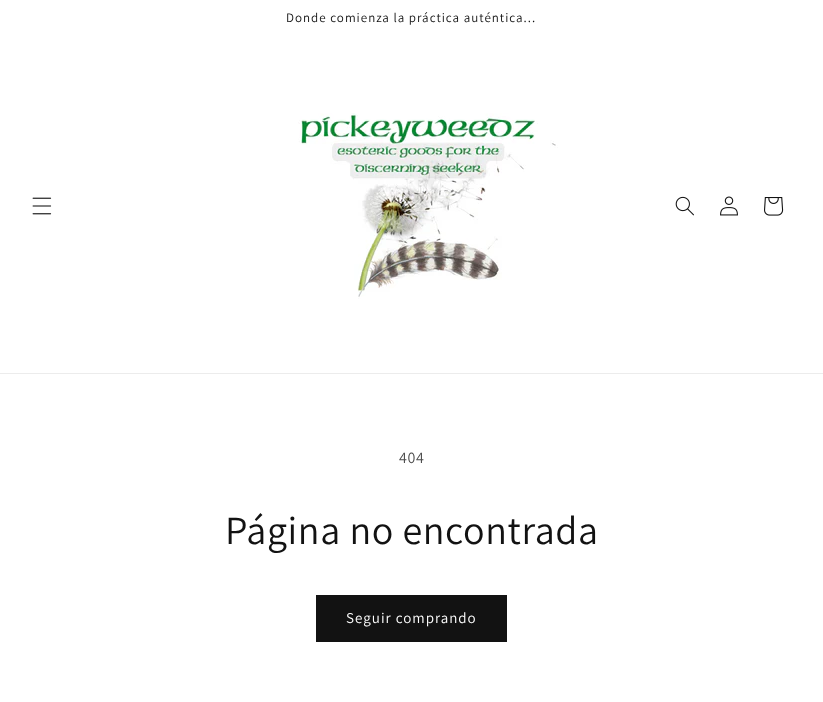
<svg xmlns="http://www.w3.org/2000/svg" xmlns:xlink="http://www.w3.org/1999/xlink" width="823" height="702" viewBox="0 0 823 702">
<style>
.cls-1{font:13px Assistant;letter-spacing:1px;fill:#121212}
.cls-2{font:16px Assistant;letter-spacing:0.6px;fill:#4d4d4d}
.cls-3{font:40px Assistant;letter-spacing:0.6px;fill:#121212}
.cls-4{font:15px Assistant;letter-spacing:1px;fill:#ffffff}
</style>
<rect width="100%" height="100%" fill="#ffffff"/>
<rect fill="#ececec" x="0" y="373" width="823" height="1"/>
<image xlink:href="image0.png" x="32" y="197" width="20" height="18"/>
<image xlink:href="image1.png" x="298" y="113" width="260" height="186"/>
<image xlink:href="image2.png" x="675" y="196" width="19" height="20"/>
<image xlink:href="image3.png" x="720" y="196" width="18" height="20"/>
<image xlink:href="image4.png" x="764" y="197" width="20" height="19"/>
<rect fill="#121212" x="316" y="595" width="191" height="47"/>
<text class="cls-1" x="286" y="22">Donde comienza la práctica auténtica...</text>
<text class="cls-2" x="399" y="463">404</text>
<text class="cls-3" x="225" y="544">Página no encontrada</text>
<text class="cls-4" x="346" y="623">Seguir comprando</text>
</svg>
